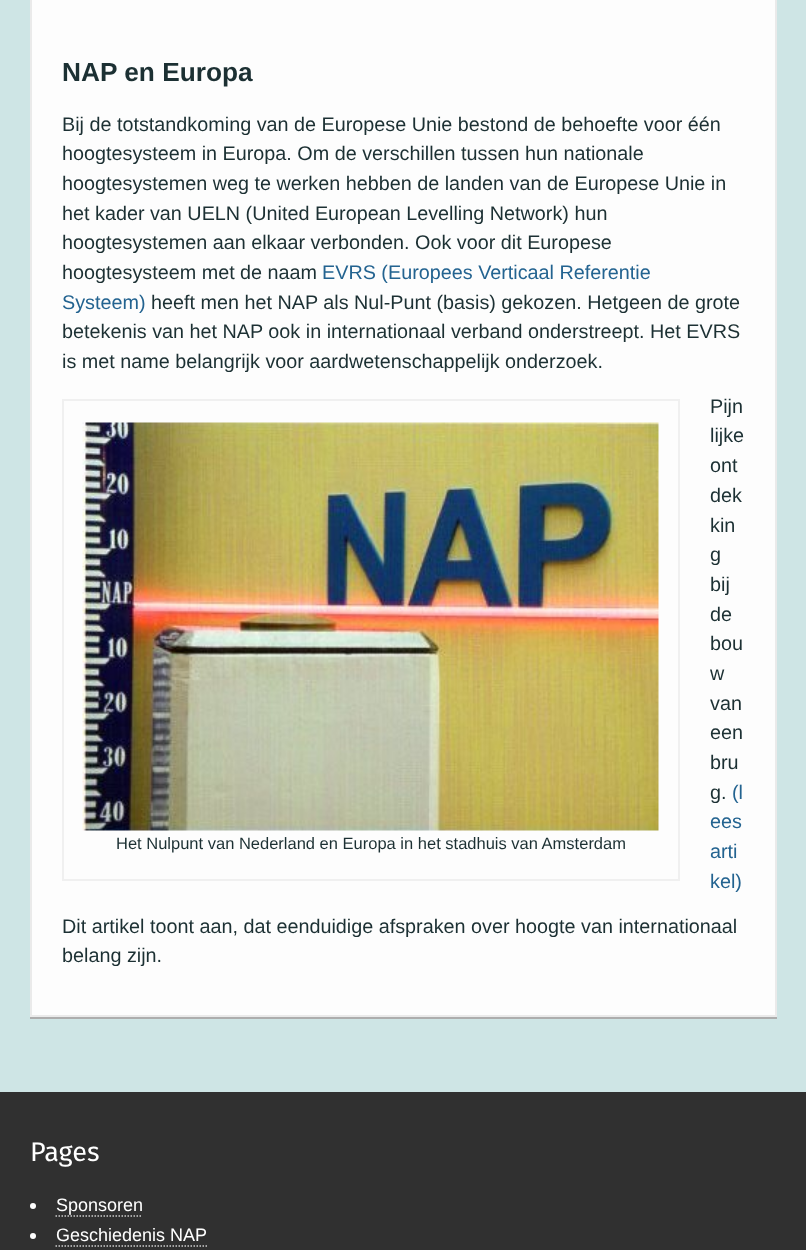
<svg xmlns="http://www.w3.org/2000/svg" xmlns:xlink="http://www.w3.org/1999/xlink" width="806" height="1250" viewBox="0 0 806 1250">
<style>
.cls-1{font:bold 26.25px Liberation Sans;fill:#1c3033}
.cls-2{font:19.8px Liberation Sans;fill:#1c3033}
.cls-3{font:19.8px Liberation Sans;fill:#236390}
.cls-4{font:16.5px Liberation Sans;fill:#1c3033}
.cls-5{font:27px Fira Sans;fill:#ffffff}
.cls-6{font:18px Liberation Sans;fill:#ffffff}
</style>
<rect width="100%" height="100%" fill="#cee5e5"/>
<rect fill="#adadad" x="30" y="1017" width="747" height="2"/>
<rect fill="#fdfdfd" stroke="#eaeaea" stroke-width="2" x="31" y="-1" width="745" height="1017"/>
<rect fill="none" stroke="#f0f0f0" stroke-width="2" x="63" y="400" width="616" height="480"/>
<image xlink:href="image0.png" x="82" y="422" width="577" height="409"/>
<rect fill="#303030" x="0" y="1092" width="806" height="158"/>
<circle fill="#ffffff" cx="33" cy="1206" r="3"/>
<path fill="none" stroke="#cccccc" stroke-width="1.5" stroke-dasharray="1.5 1.5" d="M55.5 1216H142.5"/>
<circle fill="#ffffff" cx="33" cy="1236" r="3"/>
<path fill="none" stroke="#cccccc" stroke-width="1.5" stroke-dasharray="1.5 1.5" d="M55.5 1246H207"/>
<text class="cls-1" x="62" y="81">NAP en Europa</text>
<text class="cls-2"><tspan x="62" y="131">Bij de totstandkoming van de Europese Unie bestond de behoefte voor één</tspan><tspan x="62" y="160">hoogtesysteem in Europa. Om de verschillen tussen hun nationale</tspan><tspan x="62" y="190">hoogtesystemen weg te werken hebben de landen van de Europese Unie in</tspan><tspan x="62" y="220">het kader van UELN (United European Levelling Network) hun</tspan><tspan x="62" y="249">hoogtesystemen aan elkaar verbonden. Ook voor dit Europese</tspan><tspan x="62" y="279">hoogtesysteem met de naam</tspan></text>
<text class="cls-3" x="322" y="279">EVRS (Europees Verticaal Referentie</text>
<text class="cls-3" x="62" y="309">Systeem)</text>
<text class="cls-2" x="151" y="309">heeft men het NAP als Nul-Punt (basis) gekozen. Hetgeen de grote</text>
<text class="cls-2"><tspan x="62" y="338">betekenis van het NAP ook in internationaal verband onderstreept. Het EVRS</tspan><tspan x="62" y="368">is met name belangrijk voor aardwetenschappelijk onderzoek.</tspan></text>
<text class="cls-4" x="116" y="849">Het Nulpunt van Nederland en Europa in het stadhuis van Amsterdam</text>
<text class="cls-2"><tspan x="710" y="413">Pijn</tspan><tspan x="710" y="442">lijke</tspan><tspan x="710" y="472">ont</tspan><tspan x="710" y="502">dek</tspan><tspan x="710" y="532">kin</tspan><tspan x="710" y="561">g</tspan><tspan x="710" y="591">bij</tspan><tspan x="710" y="621">de</tspan><tspan x="710" y="650">bou</tspan><tspan x="710" y="680">w</tspan><tspan x="710" y="710">van</tspan><tspan x="710" y="739">een</tspan><tspan x="710" y="769">bru</tspan><tspan x="710" y="799">g.</tspan></text>
<text class="cls-3" x="732" y="799">(l</text>
<text class="cls-3"><tspan x="710" y="828">ees</tspan><tspan x="710" y="858">arti</tspan><tspan x="710" y="888">kel)</tspan></text>
<text class="cls-2"><tspan x="62" y="933">Dit artikel toont aan, dat eenduidige afspraken over hoogte van internationaal</tspan><tspan x="62" y="962">belang zijn.</tspan></text>
<text class="cls-5" x="30" y="1161">Pages</text>
<text class="cls-6"><tspan x="56" y="1211">Sponsoren</tspan><tspan x="56" y="1241">Geschiedenis NAP</tspan></text>
</svg>
